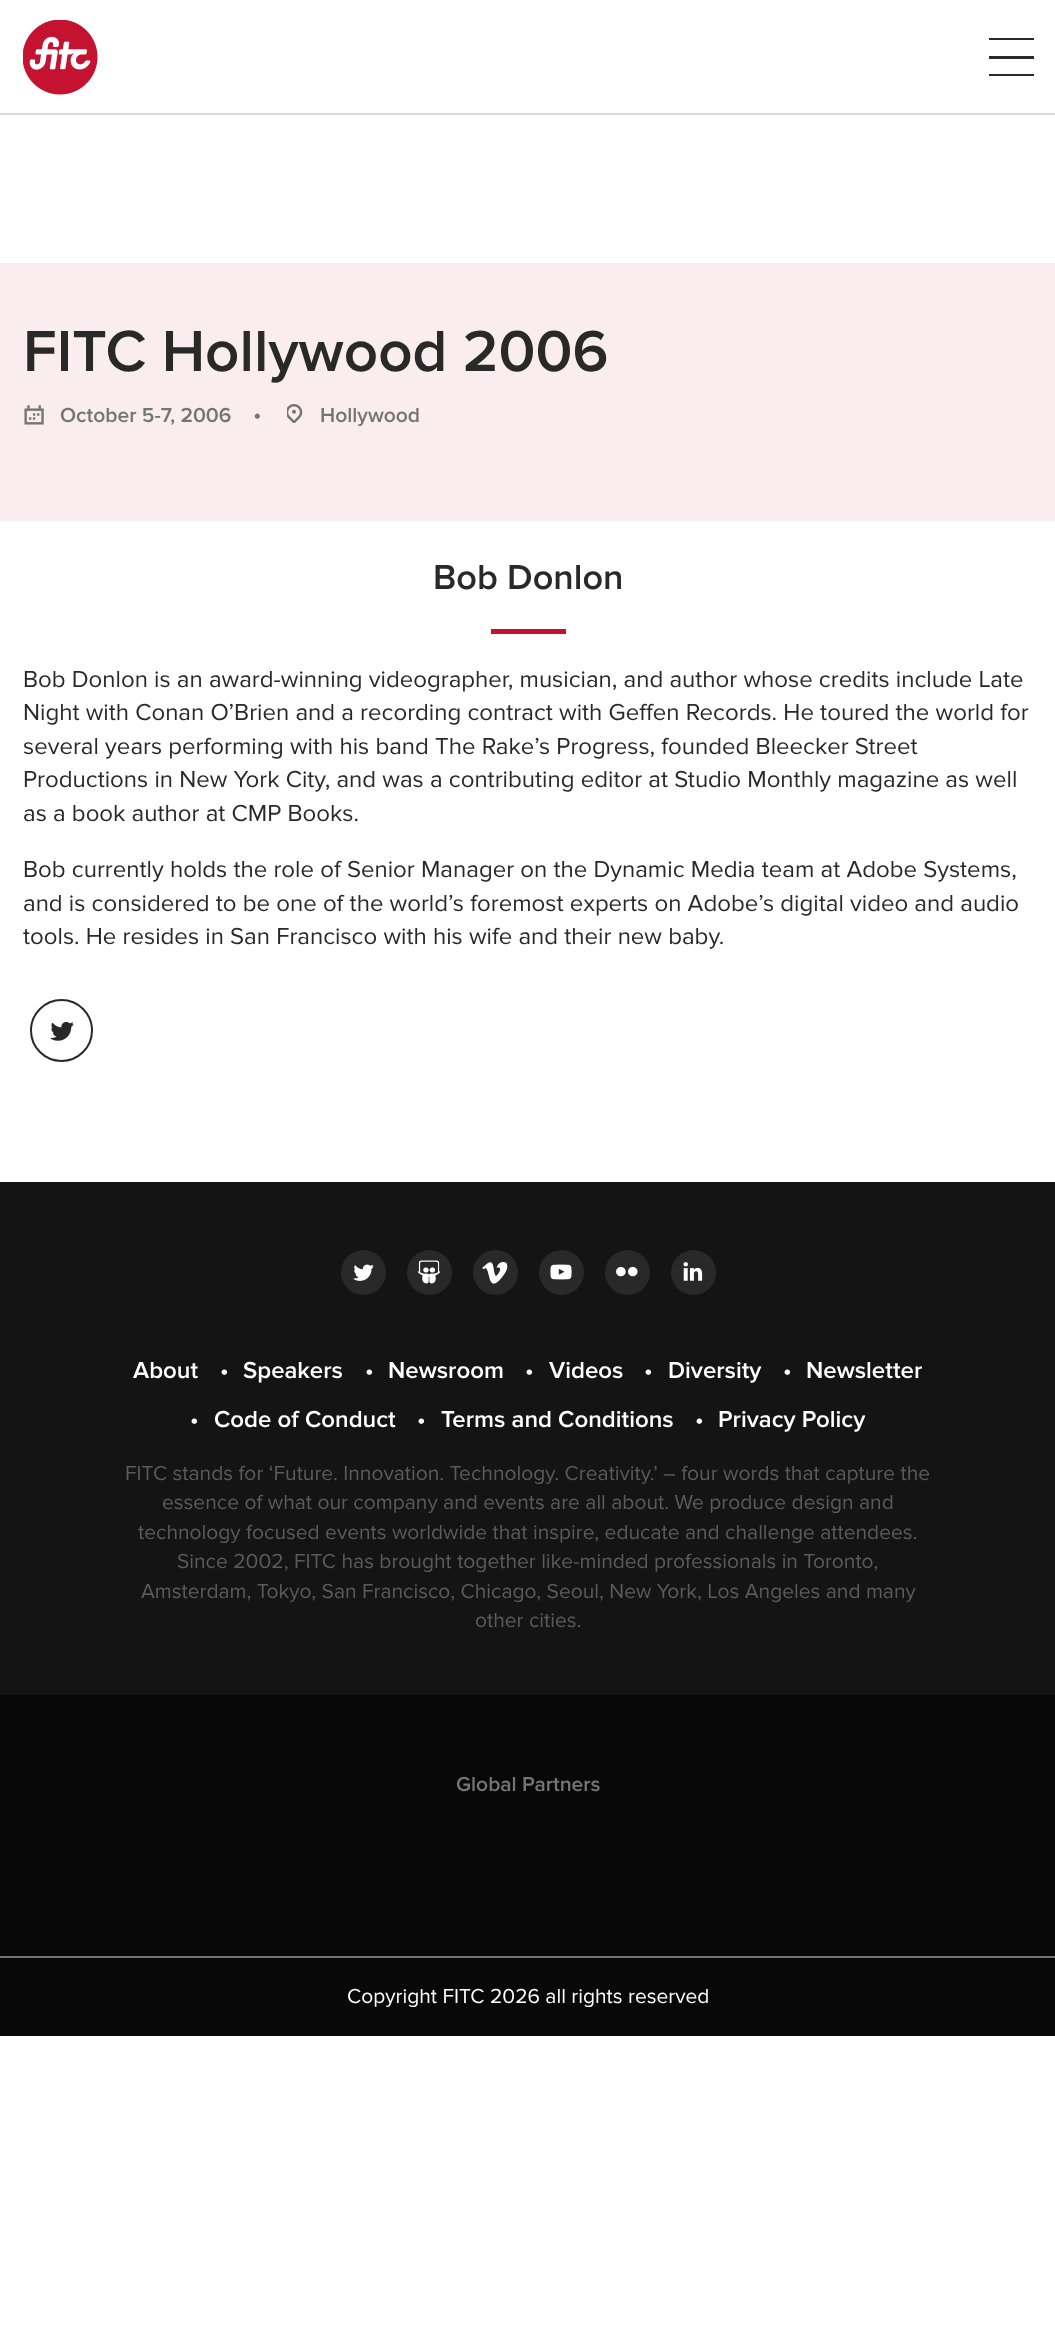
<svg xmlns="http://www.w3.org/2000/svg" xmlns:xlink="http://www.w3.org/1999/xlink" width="1055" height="2346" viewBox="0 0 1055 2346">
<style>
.cls-1{font:600 60px Proxima Nova;fill:#292929}
.cls-2{font:600 21px Proxima Nova;fill:#757575}
.cls-3{font:24px Proxima Nova;fill:#757575}
.cls-4{font:600 36px Proxima Nova;fill:#292929}
.cls-5{font:24px Proxima Nova;fill:#292929}
.cls-6{font:600 24px Proxima Nova;fill:#ffffff}
.cls-7{font:21px Proxima Nova;fill:#5b5b5b}
.cls-8{font:21px Proxima Nova;fill:#ffffff}
</style>
<rect width="100%" height="100%" fill="#ffffff"/>
<rect fill="#dbdbdb" x="0" y="113" width="1055" height="2"/>
<image xlink:href="image0.png" x="23" y="20" width="75" height="75"/>
<rect fill="#292929" x="989" y="74" width="45" height="2"/>
<rect fill="#292929" x="989" y="56" width="45" height="3"/>
<rect fill="#292929" x="989" y="38" width="45" height="2"/>
<rect fill="#f9edef" x="0" y="263" width="1055" height="258"/>
<image xlink:href="image1.png" x="24" y="405" width="20" height="20"/>
<image xlink:href="image2.png" x="287" y="404" width="16" height="19"/>
<rect fill="#c41230" x="491" y="629" width="75" height="5"/>
<circle fill="none" stroke="#292929" stroke-width="2" cx="61.5" cy="1030.5" r="30.5"/>
<image xlink:href="image3.png" x="50" y="1021" width="24" height="20"/>
<rect fill="#141414" x="0" y="1182" width="1055" height="513"/>
<circle fill="#292929" cx="363.5" cy="1272.5" r="22.5"/>
<image xlink:href="image4.png" x="353" y="1264" width="21" height="17"/>
<circle fill="#292929" cx="429.5" cy="1272.5" r="22.5"/>
<image xlink:href="image5.png" x="417" y="1260" width="24" height="24"/>
<circle fill="#292929" cx="495.5" cy="1272.5" r="22.5"/>
<image xlink:href="image6.png" x="482" y="1262" width="26" height="22"/>
<circle fill="#292929" cx="561.5" cy="1272.5" r="22.5"/>
<image xlink:href="image7.png" x="550" y="1264" width="22" height="16"/>
<circle fill="#292929" cx="627.5" cy="1272.5" r="22.5"/>
<image xlink:href="image8.png" x="616" y="1266" width="22" height="11"/>
<circle fill="#292929" cx="693.5" cy="1272.5" r="22.5"/>
<image xlink:href="image9.png" x="683" y="1262" width="20" height="19"/>
<rect fill="#080808" x="0" y="1695" width="1055" height="341"/>
<rect fill="#757575" x="0" y="1956" width="1055" height="2"/>
<text class="cls-1" x="23" y="371">FITC Hollywood 2006</text>
<text class="cls-2" x="60" y="422">October 5-7, 2006</text>
<text class="cls-3" x="253" y="422">•</text>
<text class="cls-2" x="320" y="422">Hollywood</text>
<text class="cls-4" x="433" y="589">Bob Donlon</text>
<text class="cls-5"><tspan x="23" y="687">Bob Donlon is an award-winning videographer, musician, and author whose credits include Late</tspan><tspan x="23" y="720">Night with Conan O’Brien and a recording contract with Geffen Records. He toured the world for</tspan><tspan x="23" y="754">several years performing with his band The Rake’s Progress, founded Bleecker Street</tspan><tspan x="23" y="787">Productions in New York City, and was a contributing editor at Studio Monthly magazine as well</tspan><tspan x="23" y="821">as a book author at CMP Books.</tspan></text>
<text class="cls-5"><tspan x="23" y="877">Bob currently holds the role of Senior Manager on the Dynamic Media team at Adobe Systems,</tspan><tspan x="23" y="911">and is considered to be one of the world’s foremost experts on Adobe’s digital video and audio</tspan><tspan x="23" y="944">tools. He resides in San Francisco with his wife and their new baby.</tspan></text>
<text class="cls-6" x="133" y="1378">About</text>
<text class="cls-6" x="220" y="1378">•</text>
<text class="cls-6" x="243" y="1378">Speakers</text>
<text class="cls-6" x="365" y="1378">•</text>
<text class="cls-6" x="388" y="1378">Newsroom</text>
<text class="cls-6" x="525" y="1378">•</text>
<text class="cls-6" x="549" y="1378">Videos</text>
<text class="cls-6" x="644" y="1378">•</text>
<text class="cls-6" x="668" y="1378">Diversity</text>
<text class="cls-6" x="783" y="1378">•</text>
<text class="cls-6" x="806" y="1378">Newsletter</text>
<text class="cls-6" x="190" y="1427">•</text>
<text class="cls-6" x="214" y="1427">Code of Conduct</text>
<text class="cls-6" x="417" y="1427">•</text>
<text class="cls-6" x="441" y="1427">Terms and Conditions</text>
<text class="cls-6" x="695" y="1427">•</text>
<text class="cls-6" x="718" y="1427">Privacy Policy</text>
<text class="cls-7" x="125" y="1480">FITC stands for ‘Future. Innovation. Technology. Creativity.’ – four words that capture the</text>
<text class="cls-7" x="162" y="1509">essence of what our company and events are all about. We produce design and</text>
<text class="cls-7" x="138" y="1539">technology focused events worldwide that inspire, educate and challenge attendees.</text>
<text class="cls-7" x="177" y="1568">Since 2002, FITC has brought together like-minded professionals in Toronto,</text>
<text class="cls-7" x="141" y="1598">Amsterdam, Tokyo, San Francisco, Chicago, Seoul, New York, Los Angeles and many</text>
<text class="cls-7" x="475" y="1627">other cities.</text>
<text class="cls-2" x="456" y="1791">Global Partners</text>
<text class="cls-8" x="347" y="2003">Copyright FITC 2026 all rights reserved</text>
</svg>
